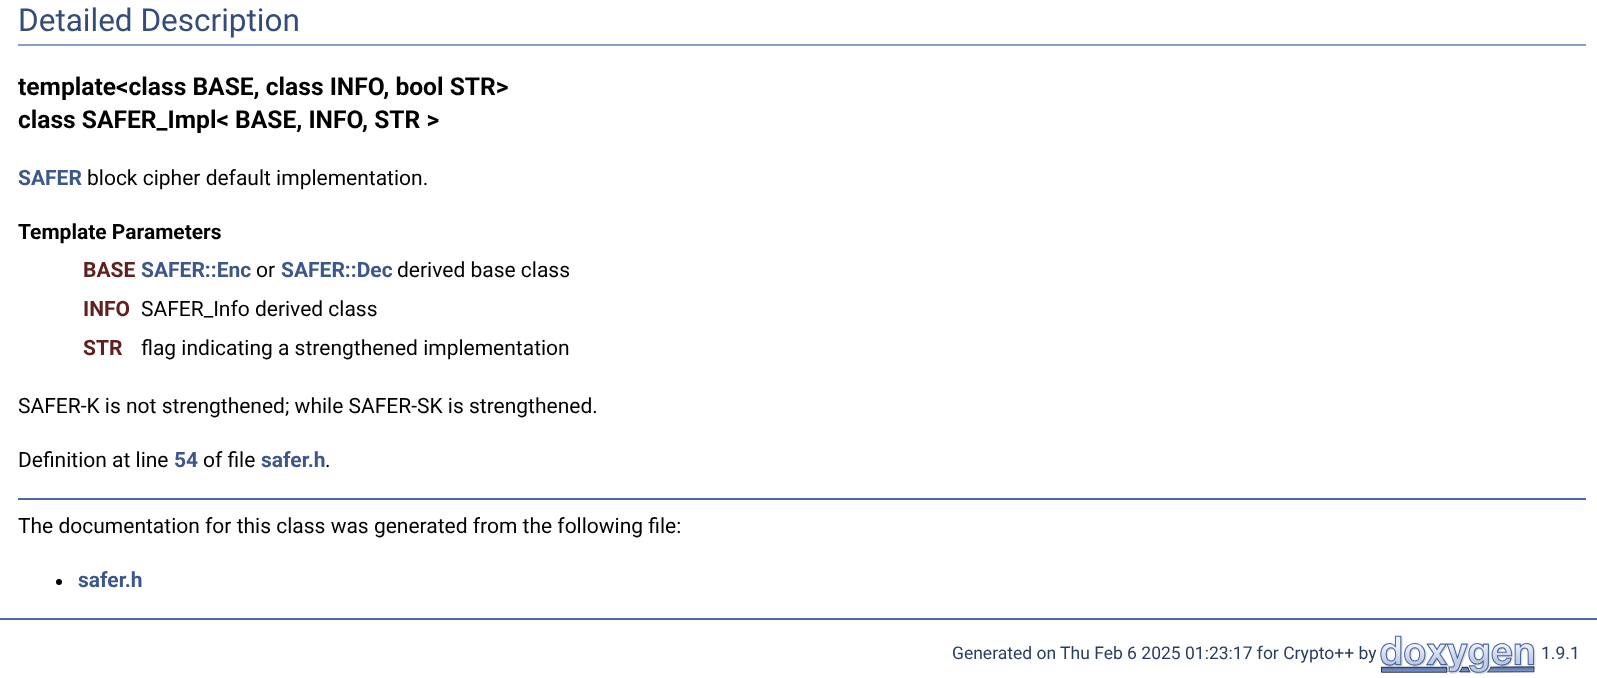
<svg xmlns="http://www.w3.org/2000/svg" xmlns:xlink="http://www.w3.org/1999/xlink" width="1597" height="678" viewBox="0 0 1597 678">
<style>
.cls-1{font:31.5px Roboto;fill:#354c7b}
.cls-2{font:bold 24.6px Roboto;fill:#000000}
.cls-3{font:bold 21px Roboto;fill:#3d578c}
.cls-4{font:21px Roboto;fill:#000000}
.cls-5{font:bold 21px Roboto;fill:#000000}
.cls-6{font:bold 21px Roboto;fill:#602020}
.cls-7{font:17.5px Roboto;fill:#2a3d61}
</style>
<rect width="100%" height="100%" fill="#ffffff"/>
<rect fill="#879ecb" x="18" y="44" width="1568" height="2"/>
<rect fill="#4a6aaa" x="18" y="498" width="1568" height="2"/>
<circle fill="#000000" cx="59" cy="582" r="3"/>
<rect fill="#4a6aaa" x="0" y="618" width="1597" height="2"/>
<image xlink:href="image0.png" x="1380" y="635" width="156" height="40"/>
<text class="cls-1" x="18" y="31">Detailed Description</text>
<text class="cls-2"><tspan x="18" y="95">template&lt;class BASE, class INFO, bool STR&gt;</tspan><tspan x="18" y="128">class SAFER_Impl&lt; BASE, INFO, STR &gt;</tspan></text>
<text class="cls-3" x="18" y="185">SAFER</text>
<text class="cls-4" x="87" y="185">block cipher default implementation.</text>
<text class="cls-5" x="18" y="239">Template Parameters</text>
<text class="cls-6" x="83" y="277">BASE</text>
<text class="cls-3" x="141" y="277">SAFER::Enc</text>
<text class="cls-4" x="256" y="277">or</text>
<text class="cls-3" x="281" y="277">SAFER::Dec</text>
<text class="cls-4" x="397" y="277">derived base class</text>
<text class="cls-6" x="83" y="316">INFO</text>
<text class="cls-4" x="141" y="316">SAFER_Info derived class</text>
<text class="cls-6" x="83" y="355">STR</text>
<text class="cls-4" x="141" y="355">flag indicating a strengthened implementation</text>
<text class="cls-4" x="18" y="413">SAFER-K is not strengthened; while SAFER-SK is strengthened.</text>
<text class="cls-4" x="18" y="467">Definition at line</text>
<text class="cls-3" x="174" y="467">54</text>
<text class="cls-4" x="203" y="467">of file</text>
<text class="cls-3" x="261" y="467">safer.h</text>
<text class="cls-4" x="325" y="467">.</text>
<text class="cls-4" x="18" y="533">The documentation for this class was generated from the following file:</text>
<text class="cls-3" x="78" y="587">safer.h</text>
<text class="cls-7" x="952" y="659">Generated on Thu Feb 6 2025 01:23:17 for Crypto++ by</text>
<text class="cls-7" x="1541" y="659">1.9.1</text>
</svg>
